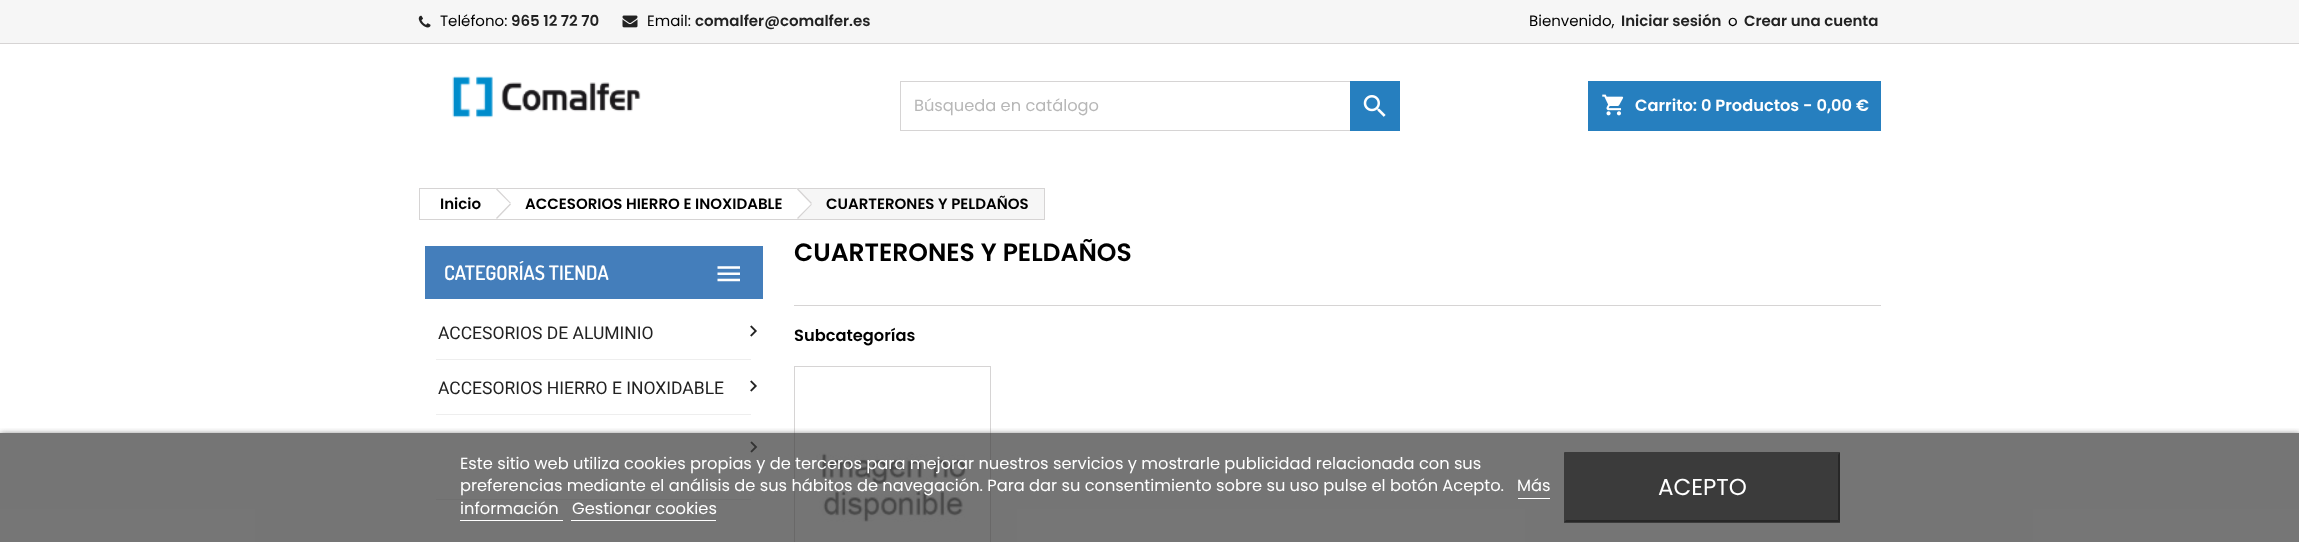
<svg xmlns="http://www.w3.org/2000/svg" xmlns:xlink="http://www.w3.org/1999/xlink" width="2299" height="542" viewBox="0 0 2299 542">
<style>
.cls-1{font:15px Poppins;fill:#000000}
.cls-2{font:600 15px Poppins;fill:#222222}
.cls-3{font:16.25px Poppins;fill:#b7b7b7}
.cls-4{font:600 16.25px Poppins;fill:#ffffff}
.cls-5{font:600 15px Poppins;fill:#000000}
.cls-6{font:600 20px Dosis;fill:#ffffff}
.cls-7{font:17.5px Roboto;fill:#222222}
.cls-8{font:600 25px Poppins;fill:#000000}
.cls-9{font:600 16.25px Poppins;fill:#000000}
.cls-10{font:16.25px Poppins;fill:#ffffff}
.cls-11{font:23px Poppins;fill:#ffffff}
</style>
<defs>
<clipPath id="clip1"><rect x="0" y="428" width="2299" height="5"/></clipPath>
</defs>
<rect width="100%" height="100%" fill="#ffffff"/>
<rect fill="#f6f6f6" x="0" y="0" width="2299" height="43"/>
<rect fill="#d6d4d4" x="0" y="43" width="2299" height="1"/>
<image xlink:href="image0.png" x="418" y="15" width="13" height="13"/>
<image xlink:href="image1.png" x="622" y="15" width="16" height="13"/>
<image xlink:href="image2.png" x="452" y="76" width="189" height="42"/>
<rect fill="none" stroke="#d6d4d4" x="900.5" y="81.5" width="499" height="49"/>
<rect fill="#267fbf" x="1350" y="81" width="50" height="50"/>
<image xlink:href="image3.png" x="1363" y="95" width="23" height="22"/>
<rect fill="#267fbf" x="1588" y="81" width="293" height="50"/>
<image xlink:href="image4.png" x="1602" y="94" width="22" height="22"/>
<rect fill="none" stroke="#d6d4d4" x="419.5" y="188.5" width="625" height="31"/>
<path fill="#ffffff" d="M498 189.5L510 202C511 203 511 204.5 510 205.5L498 218C497 219 495 219 494.5 218L482 205.5C481 204.5 481 203 482 202L494.5 189.5C495 188.5 497 188.5 498 189.5Z"/>
<path fill="#d6d4d4" d="M497 188.5L511 203L510 203.5L496 189.5Z"/>
<path fill="#d6d4d4" d="M510 203.5L511 204.5L497 219L496 218Z"/>
<rect fill="#f6f6f6" x="798" y="189" width="246" height="30"/>
<path fill="#ffffff" d="M799 189.5L811 202C812 203 812 204.5 811 205.5L799 218C798 219 796 219 795 218L783 205.5C782 204.5 782 203 783 202L795 189.5C796 188.5 798 188.5 799 189.5Z"/>
<path fill="#d6d4d4" d="M798 188.5L812 203L811 204L797 189.5ZM811 204L812 204.5L798 219L797 218Z"/>
<rect fill="#447ebb" x="425" y="246" width="338" height="53"/>
<image xlink:href="image5.png" x="717" y="266" width="23" height="16"/>
<image xlink:href="image6.png" x="750" y="325" width="7" height="12"/>
<rect fill="#eeeeee" x="436" y="359" width="315" height="1"/>
<image xlink:href="image6.png" x="750" y="380" width="7" height="12"/>
<rect fill="#eeeeee" x="436" y="414" width="315" height="1"/>
<image xlink:href="image7.png" x="750" y="441" width="8" height="12"/>
<rect fill="#eeeeee" x="436" y="499" width="315" height="1"/>
<rect fill="#d6d4d4" x="794" y="305" width="1087" height="1"/>
<rect fill="none" stroke="#d6d4d4" x="794.5" y="366.5" width="196" height="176"/>
<image xlink:href="image8.png" x="815" y="453" width="151" height="69"/>
<g clip-path="url(#clip1)">
<rect fill="#707070" filter="blur(3px)" x="0" y="434" width="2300" height="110"/>
</g>
<rect fill="#3b3b3b" fill-opacity="0.7" x="0" y="433" width="2299" height="109"/>
<rect fill="#ffffff" x="1518" y="498" width="32" height="1"/>
<rect fill="#ffffff" x="460" y="520" width="103" height="1"/>
<rect fill="#ffffff" x="571" y="520" width="145" height="1"/>
<rect fill="#3b3b3b" x="1564" y="453" width="276" height="70"/>
<path fill="#3b3b3b" d="M1564 452H1840L1838 455H1566Z"/>
<path fill="#272727" d="M1840 452V522L1838 520V455Z"/>
<path fill="#272727" d="M1840 522H1564L1566 520H1838Z"/>
<path fill="#3b3b3b" d="M1564 522V452L1566 455V520Z"/>
<text class="cls-1" x="440" y="26">Teléfono:</text>
<text class="cls-2" x="511" y="26">965 12 72 70</text>
<text class="cls-1" x="647" y="26">Email:</text>
<text class="cls-2" x="695" y="26">comalfer@comalfer.es</text>
<text class="cls-1" x="1529" y="26">Bienvenido,</text>
<text class="cls-2" x="1621" y="26">Iniciar sesión</text>
<text class="cls-1" x="1728" y="26">o</text>
<text class="cls-2" x="1744" y="26">Crear una cuenta</text>
<text class="cls-3" x="914" y="111">Búsqueda en catálogo</text>
<text class="cls-4" x="1635" y="111">Carrito: 0 Productos - 0,00 €</text>
<text class="cls-5" x="440" y="209">Inicio</text>
<text class="cls-5" x="525" y="209">ACCESORIOS HIERRO E INOXIDABLE</text>
<text class="cls-5" x="826" y="209">CUARTERONES Y PELDAÑOS</text>
<text class="cls-6" x="444" y="280">CATEGORÍAS TIENDA</text>
<text class="cls-7" x="438" y="339">ACCESORIOS DE ALUMINIO</text>
<text class="cls-7" x="438" y="394">ACCESORIOS HIERRO E INOXIDABLE</text>
<text class="cls-8" x="794" y="261">CUARTERONES Y PELDAÑOS</text>
<text class="cls-9" x="794" y="341">Subcategorías</text>
<text class="cls-10"><tspan x="460" y="469">Este sitio web utiliza cookies propias y de terceros para mejorar nuestros servicios y mostrarle publicidad relacionada con sus</tspan><tspan x="460" y="491">preferencias mediante el análisis de sus hábitos de navegación. Para dar su consentimiento sobre su uso pulse el botón Acepto.</tspan></text>
<text class="cls-10" x="1517" y="491">Más</text>
<text class="cls-10" x="460" y="514">información</text>
<text class="cls-10" x="572" y="514">Gestionar cookies</text>
<text class="cls-11" x="1658" y="495">ACEPTO</text>
</svg>
